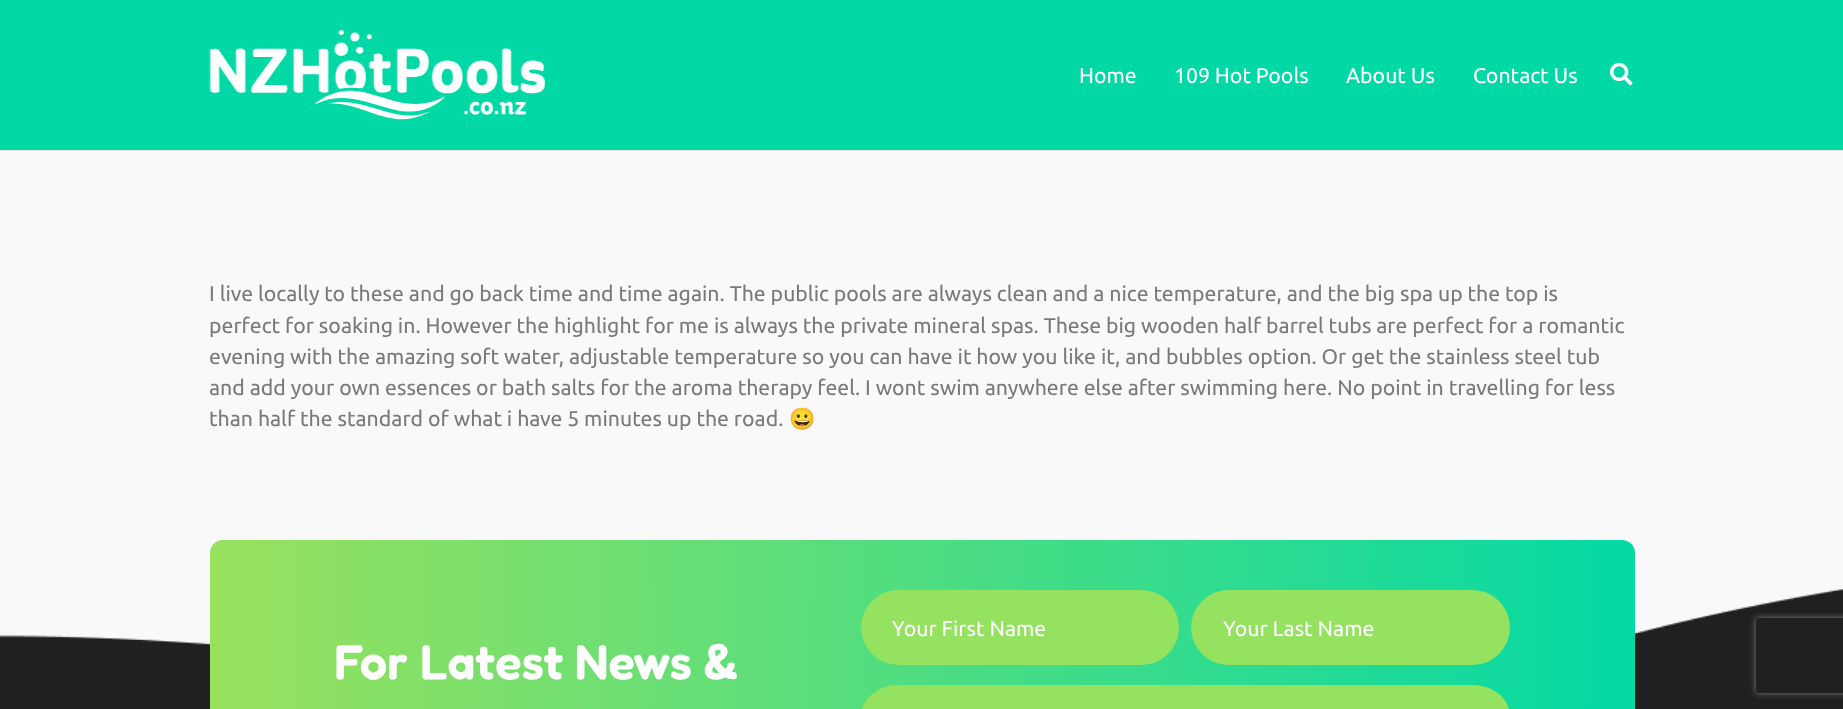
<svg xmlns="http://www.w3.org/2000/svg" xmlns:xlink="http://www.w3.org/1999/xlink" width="1843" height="709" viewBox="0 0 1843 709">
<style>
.cls-1{font:21.25px Ubuntu;fill:#ffffff}
.cls-2{font:21.25px Ubuntu;fill:#7a7a7a}
.cls-3{font:21.25px Noto Color Emoji;fill:#7a7a7a}
.cls-4{font:600 49px Fredoka;fill:#ffffff}
</style>
<defs>
<linearGradient id="g1" gradientUnits="userSpaceOnUse" x1="210" y1="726" x2="1635" y2="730"><stop offset="0" stop-color="#99e15e"/><stop offset="1" stop-color="#04d9a4"/></linearGradient>
<clipPath id="clip1"><path d="M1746 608H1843V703H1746ZM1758.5 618H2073.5C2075 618 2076 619 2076 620.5V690.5C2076 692 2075 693 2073.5 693H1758.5C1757 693 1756 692 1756 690.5V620.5C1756 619 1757 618 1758.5 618Z" clip-rule="evenodd"/></clipPath>
</defs>
<rect width="100%" height="100%" fill="#f9f9f9"/>
<path fill="#e5e5e5" d="M0 150V151H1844V1V150Z"/>
<rect fill="#00d9a6" x="0" y="0" width="1843" height="150"/>
<image xlink:href="image0.png" x="209" y="30" width="336" height="90"/>
<image xlink:href="image1.png" x="1610" y="62" width="23" height="24"/>
<image xlink:href="image2.png" x="0" y="589" width="1843" height="120"/>
<rect fill="url(#g1)" x="210" y="540" width="1425" height="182" rx="13"/>
<rect fill="#95e160" x="861" y="590" width="318" height="75" rx="37.5"/>
<rect fill="#95e160" x="1191" y="590" width="319" height="75" rx="37.5"/>
<g clip-path="url(#clip1)">
<rect fill="#808080" filter="blur(3px)" x="1756" y="618" width="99" height="75" rx="2.5"/>
</g>
<rect fill="#95e160" x="861" y="685" width="649" height="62" rx="37.5"/>
<text class="cls-1" x="1079" y="83">Home</text>
<text class="cls-1" x="1174" y="83">109 Hot Pools</text>
<text class="cls-1" x="1346" y="83">About Us</text>
<text class="cls-1" x="1473" y="83">Contact Us</text>
<text class="cls-2"><tspan x="209" y="301">I live locally to these and go back time and time again. The public pools are always clean and a nice temperature, and the big spa up the top is</tspan><tspan x="209" y="333">perfect for soaking in. However the highlight for me is always the private mineral spas. These big wooden half barrel tubs are perfect for a romantic</tspan><tspan x="209" y="364">evening with the amazing soft water, adjustable temperature so you can have it how you like it, and bubbles option. Or get the stainless steel tub</tspan><tspan x="209" y="395">and add your own essences or bath salts for the aroma therapy feel. I wont swim anywhere else after swimming here. No point in travelling for less</tspan><tspan x="209" y="426">than half the standard of what i have 5 minutes up the road.</tspan></text>
<text class="cls-3" x="789" y="426">😀</text>
<text class="cls-1" x="892" y="636">Your First Name</text>
<text class="cls-1" x="1223" y="636">Your Last Name</text>
<text class="cls-4" x="334" y="679">For Latest News &amp;</text>
</svg>
